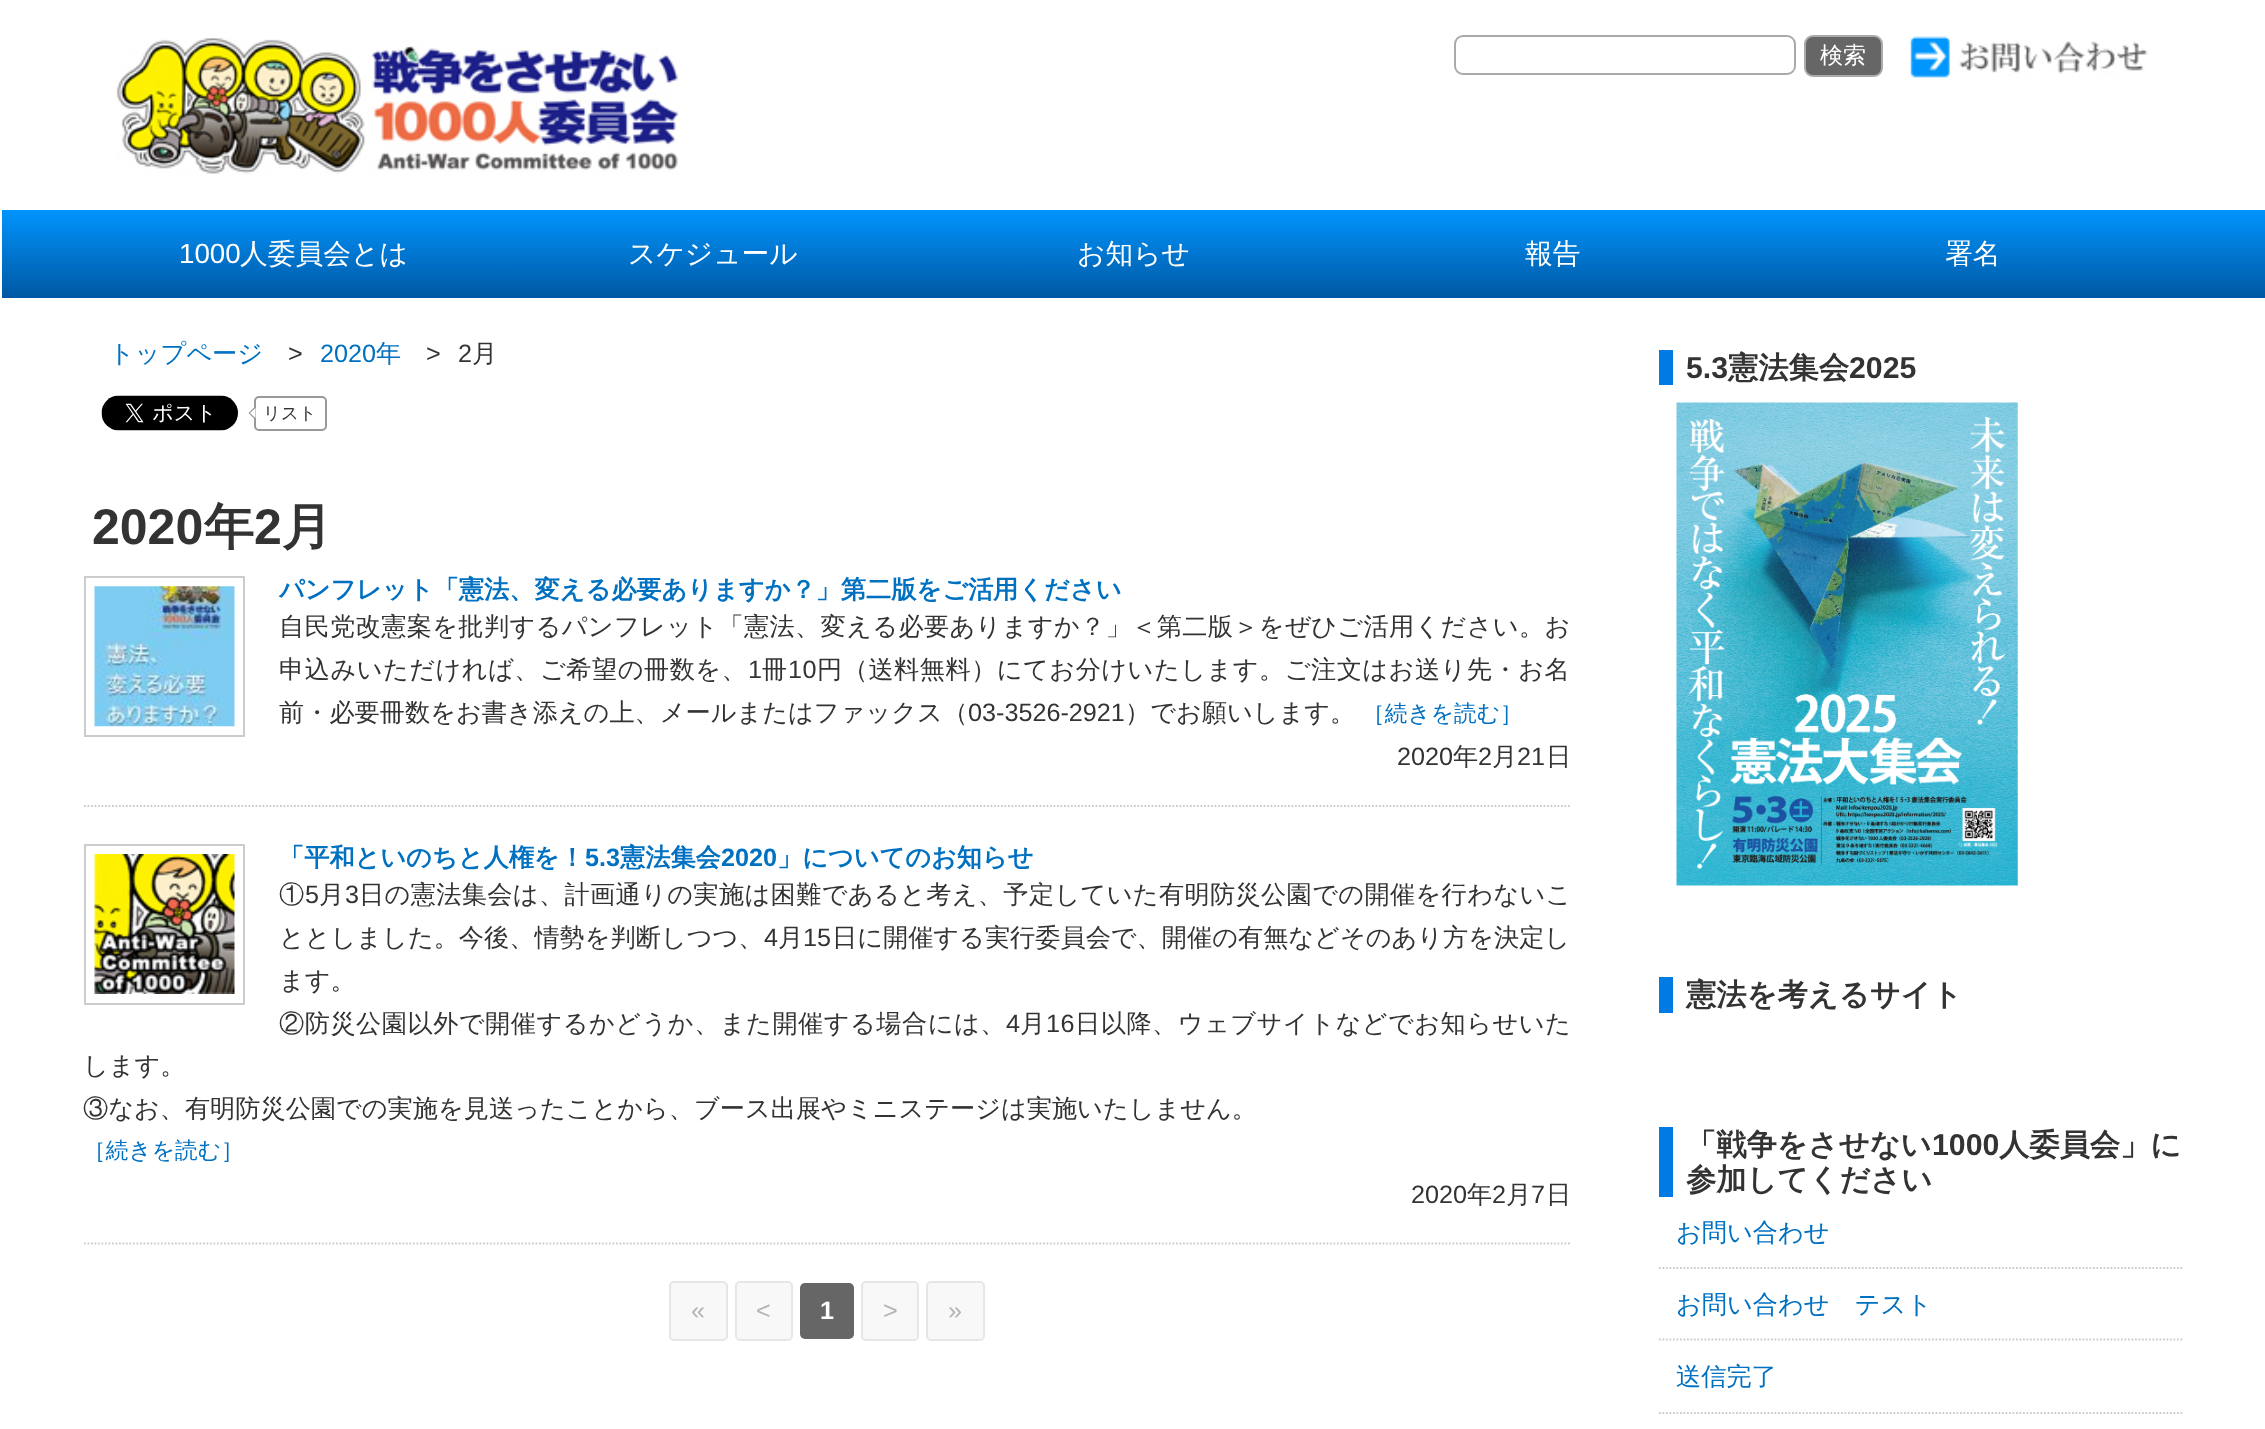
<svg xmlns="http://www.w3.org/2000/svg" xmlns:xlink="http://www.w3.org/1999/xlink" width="2265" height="1429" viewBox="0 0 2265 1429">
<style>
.cls-1{font:500 23px WenQuanYi Zen Hei;fill:#ffffff}
.cls-2{font:27.75px Liberation Sans;fill:#ffffff}
.cls-3{font:500 27.75px WenQuanYi Zen Hei;fill:#ffffff}
.cls-4{font:500 25.2px WenQuanYi Zen Hei;fill:#0070c0}
.cls-5{font:25.2px Liberation Sans;letter-spacing:18px;fill:#333333}
.cls-6{font:25.2px Liberation Sans;fill:#0070c0}
.cls-7{font:25.2px Liberation Sans;fill:#333333}
.cls-8{font:500 25.2px WenQuanYi Zen Hei;fill:#333333}
.cls-9{font:500 17.5px WenQuanYi Zen Hei;fill:#333333}
.cls-10{font:bold 50px Liberation Sans;fill:#333333}
.cls-11{font:bold 50px WenQuanYi Zen Hei;fill:#333333}
.cls-12{font:bold 25.2px WenQuanYi Zen Hei;fill:#0070c0}
.cls-13{font:500 25.2px WenQuanYi Zen Hei;letter-spacing:0.35px;fill:#333333}
.cls-14{font:500 25.2px WenQuanYi Zen Hei;letter-spacing:0.5px;fill:#333333}
.cls-15{font:25.2px Liberation Sans;letter-spacing:0.5px;fill:#333333}
.cls-16{font:500 22.75px WenQuanYi Zen Hei;fill:#0070c0}
.cls-17{font:bold 25.2px Liberation Sans;fill:#0070c0}
.cls-18{font:25.2px Liberation Sans;letter-spacing:0.35px;fill:#333333}
.cls-19{font:25.2px Liberation Sans;fill:#b4b4b4}
.cls-20{font:bold 25.2px Liberation Sans;fill:#ffffff}
.cls-21{font:bold 30.25px Liberation Sans;fill:#333333}
.cls-22{font:bold 30.25px WenQuanYi Zen Hei;fill:#333333}
</style>
<defs>
<linearGradient id="g1" gradientUnits="userSpaceOnUse" x1="1134" y1="298" x2="1134" y2="210"><stop offset="0" stop-color="#0058a3"/><stop offset="1" stop-color="#0194fd"/></linearGradient>
</defs>
<rect width="100%" height="100%" fill="#ffffff"/>
<image xlink:href="image0.png" x="116" y="37" width="563" height="137"/>
<rect fill="none" stroke="#aaaaaa" stroke-width="2" x="1455" y="36" width="340" height="38" rx="8"/>
<rect fill="#666666" stroke="#aaaaaa" stroke-width="2" x="1805" y="36" width="77" height="40" rx="8"/>
<image xlink:href="image1.png" x="1910" y="36" width="238" height="42"/>
<rect fill="url(#g1)" x="2" y="210" width="2263" height="88"/>
<image xlink:href="image2.png" x="101" y="395" width="137" height="36"/>
<rect fill="none" stroke="#999999" stroke-width="2" x="255" y="397" width="71" height="33" rx="4"/>
<path fill="#999999" d="M255.5 406V420L248.5 413Z"/>
<path fill="#ffffff" d="M255.5 408V418L250 413Z"/>
<rect fill="none" stroke="#cccccc" stroke-width="2" x="85" y="577" width="159" height="159"/>
<image xlink:href="image3.png" x="94" y="586" width="141" height="141"/>
<path fill="none" stroke="#cccccc" stroke-width="1.8" stroke-dasharray="1.75 1.75" d="M84 806H1571.5"/>
<rect fill="none" stroke="#cccccc" stroke-width="2" x="85" y="845" width="159" height="159"/>
<image xlink:href="image4.png" x="94" y="854" width="141" height="140"/>
<path fill="none" stroke="#cccccc" stroke-width="1.8" stroke-dasharray="1.75 1.75" d="M84 1243.5H1571.5"/>
<rect fill="#f8f8f8" stroke="#e6e6e6" stroke-width="2" x="670" y="1282" width="57" height="58" rx="4"/>
<rect fill="#f8f8f8" stroke="#e6e6e6" stroke-width="2" x="736" y="1282" width="56" height="58" rx="4"/>
<rect fill="#666666" x="800" y="1283" width="54" height="56" rx="5"/>
<rect fill="#f8f8f8" stroke="#e6e6e6" stroke-width="2" x="862" y="1282" width="56" height="58" rx="4"/>
<rect fill="#f8f8f8" stroke="#e6e6e6" stroke-width="2" x="927" y="1282" width="57" height="58" rx="4"/>
<rect fill="#007be3" x="1659" y="350" width="14" height="35"/>
<image xlink:href="image5.png" x="1676" y="402" width="342" height="484"/>
<rect fill="#007be3" x="1659" y="977" width="14" height="36"/>
<rect fill="#007be3" x="1659" y="1127" width="14" height="70"/>
<path fill="none" stroke="#cccccc" stroke-width="1.8" stroke-dasharray="1.75 1.75" d="M1659 1268H2184"/>
<path fill="none" stroke="#cccccc" stroke-width="1.8" stroke-dasharray="1.75 1.75" d="M1659 1339.5H2184"/>
<path fill="none" stroke="#cccccc" stroke-width="1.8" stroke-dasharray="1.75 1.75" d="M1659 1413H2184"/>
<text class="cls-1" x="1820" y="63">検索</text>
<text class="cls-2" x="179" y="263">1000</text>
<text class="cls-3" x="240" y="263">人委員会とは</text>
<text class="cls-3" x="628" y="263">スケジュール</text>
<text class="cls-3" x="1077" y="263">お知らせ</text>
<text class="cls-3" x="1525" y="263">報告</text>
<text class="cls-3" x="1945" y="263">署名</text>
<text class="cls-4" x="109" y="362">トップページ</text>
<text class="cls-5" x="288" y="362">&gt;</text>
<text class="cls-6" x="320" y="362">2020</text>
<text class="cls-4" x="376" y="362">年</text>
<text class="cls-5" x="426" y="362">&gt;</text>
<text class="cls-7" x="458" y="362">2</text>
<text class="cls-8" x="472" y="362">月</text>
<text class="cls-9" x="263" y="419">リスト</text>
<text class="cls-10" x="92" y="544">2020</text>
<text class="cls-11" x="204" y="544">年</text>
<text class="cls-10" x="254" y="544">2</text>
<text class="cls-11" x="282" y="544">月</text>
<text class="cls-12" x="279" y="598">パンフレット「憲法、変える必要ありますか？」第二版をご活用ください</text>
<text class="cls-13" x="279" y="635">自民党改憲案を批判するパンフレット「憲法、変える必要ありますか？」＜第二版＞をぜひご活用ください。お</text>
<text class="cls-14" x="279" y="678">申込みいただければ、ご希望の冊数を、</text>
<text class="cls-15" x="748" y="678">1</text>
<text class="cls-14" x="762" y="678">冊</text>
<text class="cls-15" x="788" y="678">10</text>
<text class="cls-14" x="817" y="678">円（送料無料）にてお分けいたします。ご注文はお送り先・お名</text>
<text class="cls-8" x="279" y="721">前・必要冊数をお書き添えの上、メールまたはファックス（</text>
<text class="cls-7" x="968" y="721">03-3526-2921</text>
<text class="cls-8" x="1125" y="721">）でお願いします。</text>
<text class="cls-16" x="1362" y="721">［続きを読む］</text>
<text class="cls-7" x="1397" y="765">2020</text>
<text class="cls-8" x="1453" y="765">年</text>
<text class="cls-7" x="1478" y="765">2</text>
<text class="cls-8" x="1492" y="765">月</text>
<text class="cls-7" x="1517" y="765">21</text>
<text class="cls-8" x="1546" y="765">日</text>
<text class="cls-12" x="279" y="866">「平和といのちと人権を！</text>
<text class="cls-17" x="585" y="866">5.3</text>
<text class="cls-12" x="620" y="866">憲法集会</text>
<text class="cls-17" x="721" y="866">2020</text>
<text class="cls-12" x="777" y="866">」についてのお知らせ</text>
<text class="cls-13" x="279" y="903">①</text>
<text class="cls-18" x="305" y="903">5</text>
<text class="cls-13" x="319" y="903">月</text>
<text class="cls-18" x="345" y="903">3</text>
<text class="cls-13" x="359" y="903">日の憲法集会は、計画通りの実施は困難であると考え、予定していた有明防災公園での開催を行わないこ</text>
<text class="cls-8" x="279" y="946">ととしました。今後、情勢を判断しつつ、</text>
<text class="cls-7" x="764" y="946">4</text>
<text class="cls-8" x="778" y="946">月</text>
<text class="cls-7" x="803" y="946">15</text>
<text class="cls-8" x="832" y="946">日に開催する実行委員会で、開催の有無などそのあり方を決定し</text>
<text class="cls-8" x="279" y="989">ます。</text>
<text class="cls-14" x="279" y="1032">②防災公園以外で開催するかどうか、また開催する場合には、</text>
<text class="cls-15" x="1006" y="1032">4</text>
<text class="cls-14" x="1020" y="1032">月</text>
<text class="cls-15" x="1046" y="1032">16</text>
<text class="cls-14" x="1075" y="1032">日以降、ウェブサイトなどでお知らせいた</text>
<text class="cls-8"><tspan x="83" y="1074">します。</tspan><tspan x="83" y="1117">③なお、有明防災公園での実施を見送ったことから、ブース出展やミニステージは実施いたしません。</tspan></text>
<text class="cls-16" x="83" y="1158">［続きを読む］</text>
<text class="cls-7" x="1411" y="1203">2020</text>
<text class="cls-8" x="1467" y="1203">年</text>
<text class="cls-7" x="1492" y="1203">2</text>
<text class="cls-8" x="1506" y="1203">月</text>
<text class="cls-7" x="1531" y="1203">7</text>
<text class="cls-8" x="1546" y="1203">日</text>
<text class="cls-19" x="691" y="1319">«</text>
<text class="cls-19" x="756" y="1319">&lt;</text>
<text class="cls-20" x="820" y="1319">1</text>
<text class="cls-19" x="883" y="1319">&gt;</text>
<text class="cls-19" x="948" y="1319">»</text>
<text class="cls-21" x="1686" y="378">5.3</text>
<text class="cls-22" x="1728" y="378">憲法集会</text>
<text class="cls-21" x="1849" y="378">2025</text>
<text class="cls-22" x="1686" y="1005">憲法を考えるサイト</text>
<text class="cls-22" x="1686" y="1155">「戦争をさせない</text>
<text class="cls-21" x="1932" y="1155">1000</text>
<text class="cls-22" x="1999" y="1155">人委員会」に</text>
<text class="cls-22" x="1686" y="1190">参加してください</text>
<text class="cls-4" x="1676" y="1241">お問い合わせ</text>
<text class="cls-4" x="1676" y="1313">お問い合わせ　テスト</text>
<text class="cls-4" x="1676" y="1385">送信完了</text>
</svg>
